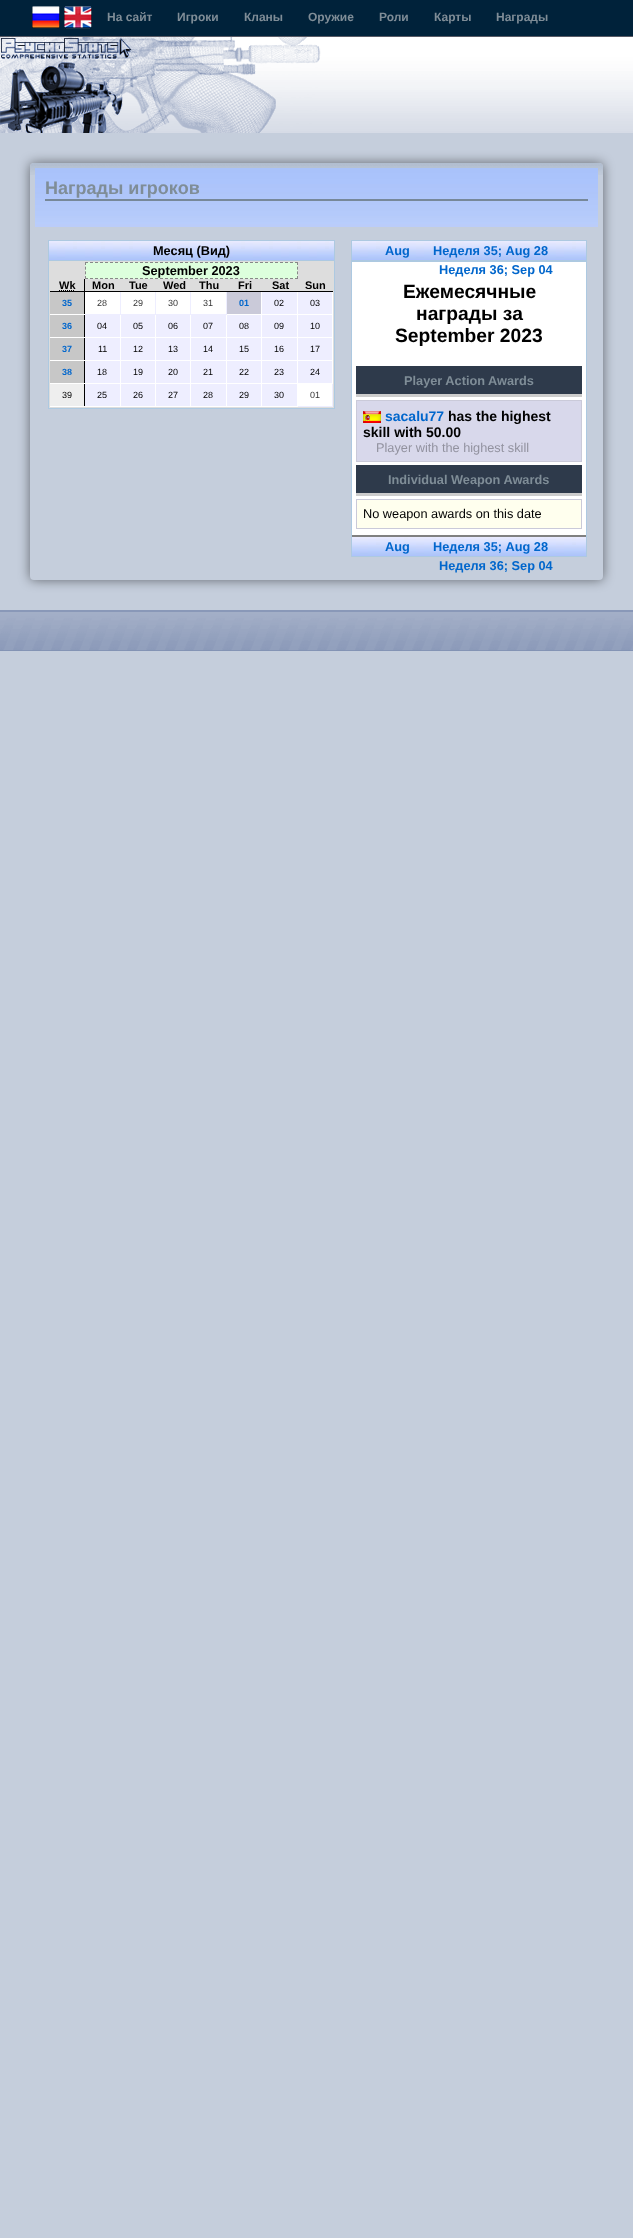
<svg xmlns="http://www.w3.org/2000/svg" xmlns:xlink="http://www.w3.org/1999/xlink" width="633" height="2238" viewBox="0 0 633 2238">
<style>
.cls-1{font:bold 12px Liberation Sans;fill:#7f8d97}
.cls-2{font:bold 18px Liberation Sans;fill:#7f8d97}
.cls-3{font:bold 12.75px Liberation Sans;fill:#000000}
.cls-4{font:bold 11px Liberation Sans;fill:#000000}
.cls-5{font:bold 9px Liberation Sans;fill:#0066cc}
.cls-6{font:9px Liberation Sans;fill:#363636}
.cls-7{font:9px Liberation Sans;fill:#000000}
.cls-8{font:bold 12.75px Liberation Sans;fill:#0066cc}
.cls-9{font:bold 19.25px Liberation Sans;fill:#000000}
.cls-10{font:bold 12.75px Liberation Sans;fill:#7f8d97}
.cls-11{font:bold 14px Liberation Sans;fill:#0066cc}
.cls-12{font:bold 14px Liberation Sans;fill:#000000}
.cls-13{font:12.75px Liberation Sans;fill:#92929f}
.cls-14{font:12.75px Liberation Sans;fill:#000000}
</style>
<rect width="100%" height="100%" fill="#c5cedc"/>
<rect fill="#00223a" x="0" y="0" width="633" height="36"/>
<rect fill="#585a65" x="0" y="36" width="633" height="1"/>
<image xlink:href="image0.png" x="32" y="6" width="28" height="23"/>
<image xlink:href="image1.png" x="64" y="6" width="28" height="23"/>
<image xlink:href="image2.png" x="321" y="37" width="312" height="96"/>
<image xlink:href="image3.png" x="0" y="37" width="321" height="96"/>
<rect fill="#000000" fill-opacity="0.5" filter="blur(6px)" x="30" y="163" width="573" height="417" rx="4"/>
<rect fill="#c5cedc" x="30" y="163" width="573" height="417" rx="4"/>
<image xlink:href="image4.png" x="30" y="163" width="573" height="12"/>
<image xlink:href="image5.png" x="35" y="168" width="563" height="59"/>
<rect fill="#778899" x="45" y="199" width="543" height="2"/>
<image xlink:href="image6.png" x="49" y="241" width="285" height="19"/>
<rect fill="none" stroke="#adc9e1" x="48.5" y="240.5" width="286" height="20"/>
<rect fill="#eeeeee" x="50" y="384" width="34" height="22"/>
<rect fill="#adc9e1" x="334" y="261" width="1" height="148"/>
<rect fill="#adc9e1" x="48" y="408" width="287" height="1"/>
<rect fill="#adc9e1" x="48" y="261" width="1" height="148"/>
<rect fill="none" stroke="#dddddd" x="49.5" y="261.5" width="284" height="146"/>
<rect fill="#dddddd" x="50" y="262" width="283" height="29"/>
<rect fill="#ddffdd" x="85" y="262" width="213" height="17"/>
<path fill="none" stroke="#888888" stroke-dasharray="3 2" d="M85 262.5H298"/>
<path fill="none" stroke="#888888" stroke-dasharray="3 1.67" d="M297.5 262V279"/>
<path fill="none" stroke="#888888" stroke-dasharray="3 2" d="M85 278.5H298"/>
<path fill="none" stroke="#888888" stroke-dasharray="3 1.67" d="M85.5 262V279"/>
<rect fill="#000000" x="84" y="279" width="1" height="128"/>
<rect fill="#000000" x="50" y="291" width="283" height="1"/>
<path fill="none" stroke="#000000" stroke-dasharray="1 1" d="M59 290.5H75"/>
<rect fill="#c7c7c7" x="50" y="292" width="34" height="22"/>
<rect fill="#ffffff" x="50" y="314" width="35" height="1"/>
<rect fill="#ffffff" x="85" y="292" width="35" height="22"/>
<rect fill="#eeeeff" x="120" y="292" width="1" height="23"/>
<rect fill="#eeeeff" x="85" y="314" width="36" height="1"/>
<rect fill="#ffffff" x="121" y="292" width="34" height="22"/>
<rect fill="#eeeeff" x="155" y="292" width="1" height="23"/>
<rect fill="#eeeeff" x="121" y="314" width="35" height="1"/>
<rect fill="#ffffff" x="156" y="292" width="34" height="22"/>
<rect fill="#eeeeff" x="190" y="292" width="1" height="23"/>
<rect fill="#eeeeff" x="156" y="314" width="35" height="1"/>
<rect fill="#ffffff" x="191" y="292" width="35" height="22"/>
<rect fill="#eeeeff" x="226" y="292" width="1" height="23"/>
<rect fill="#eeeeff" x="191" y="314" width="36" height="1"/>
<rect fill="#cacad9" x="227" y="292" width="34" height="22"/>
<rect fill="#ffffff" x="261" y="292" width="1" height="115"/>
<rect fill="#ffffff" x="227" y="314" width="35" height="1"/>
<rect fill="#eeeeff" x="262" y="292" width="35" height="22"/>
<rect fill="#ffffff" x="297" y="292" width="1" height="115"/>
<rect fill="#ffffff" x="262" y="314" width="36" height="1"/>
<rect fill="#eeeeff" x="298" y="292" width="34" height="22"/>
<rect fill="#ffffff" x="332" y="292" width="1" height="92"/>
<rect fill="#ffffff" x="298" y="314" width="35" height="1"/>
<rect fill="#c7c7c7" x="50" y="315" width="34" height="22"/>
<rect fill="#ffffff" x="50" y="337" width="35" height="1"/>
<rect fill="#eeeeff" x="85" y="315" width="35" height="22"/>
<rect fill="#ffffff" x="120" y="315" width="1" height="92"/>
<rect fill="#ffffff" x="85" y="337" width="36" height="1"/>
<rect fill="#eeeeff" x="121" y="315" width="34" height="22"/>
<rect fill="#ffffff" x="155" y="315" width="1" height="92"/>
<rect fill="#ffffff" x="121" y="337" width="35" height="1"/>
<rect fill="#eeeeff" x="156" y="315" width="34" height="22"/>
<rect fill="#ffffff" x="190" y="315" width="1" height="92"/>
<rect fill="#ffffff" x="156" y="337" width="35" height="1"/>
<rect fill="#eeeeff" x="191" y="315" width="35" height="22"/>
<rect fill="#ffffff" x="226" y="315" width="1" height="92"/>
<rect fill="#ffffff" x="191" y="337" width="142" height="1"/>
<rect fill="#eeeeff" x="227" y="315" width="34" height="22"/>
<rect fill="#eeeeff" x="262" y="315" width="35" height="22"/>
<rect fill="#eeeeff" x="298" y="315" width="34" height="22"/>
<rect fill="#c7c7c7" x="50" y="338" width="34" height="22"/>
<rect fill="#ffffff" x="50" y="360" width="283" height="1"/>
<rect fill="#eeeeff" x="85" y="338" width="35" height="22"/>
<rect fill="#eeeeff" x="121" y="338" width="34" height="22"/>
<rect fill="#eeeeff" x="156" y="338" width="34" height="22"/>
<rect fill="#eeeeff" x="191" y="338" width="35" height="22"/>
<rect fill="#eeeeff" x="227" y="338" width="34" height="22"/>
<rect fill="#eeeeff" x="262" y="338" width="35" height="22"/>
<rect fill="#eeeeff" x="298" y="338" width="34" height="22"/>
<rect fill="#c7c7c7" x="50" y="361" width="34" height="22"/>
<rect fill="#ffffff" x="50" y="383" width="283" height="1"/>
<rect fill="#eeeeff" x="85" y="361" width="35" height="22"/>
<rect fill="#eeeeff" x="121" y="361" width="34" height="22"/>
<rect fill="#eeeeff" x="156" y="361" width="34" height="22"/>
<rect fill="#eeeeff" x="191" y="361" width="35" height="22"/>
<rect fill="#eeeeff" x="227" y="361" width="34" height="22"/>
<rect fill="#eeeeff" x="262" y="361" width="35" height="22"/>
<rect fill="#eeeeff" x="298" y="361" width="34" height="22"/>
<rect fill="#ffffff" x="50" y="406" width="248" height="1"/>
<rect fill="#eeeeff" x="85" y="384" width="35" height="22"/>
<rect fill="#eeeeff" x="121" y="384" width="34" height="22"/>
<rect fill="#eeeeff" x="156" y="384" width="34" height="22"/>
<rect fill="#eeeeff" x="191" y="384" width="35" height="22"/>
<rect fill="#eeeeff" x="227" y="384" width="34" height="22"/>
<rect fill="#eeeeff" x="262" y="384" width="35" height="22"/>
<rect fill="#ffffff" x="298" y="384" width="34" height="22"/>
<rect fill="#eeeeff" x="332" y="384" width="1" height="23"/>
<rect fill="#eeeeff" x="298" y="406" width="35" height="1"/>
<rect fill="#ffffff" x="352" y="262" width="234" height="273"/>
<rect fill="none" stroke="#adc9e1" x="351.5" y="240.5" width="235" height="316"/>
<image xlink:href="image7.png" x="352" y="241" width="234" height="19"/>
<rect fill="#adc9e1" x="352" y="260" width="234" height="2"/>
<rect fill="#2e3a4b" x="356" y="366" width="226" height="28"/>
<rect fill="#cccccc" x="356" y="394" width="226" height="3"/>
<rect fill="#d8d8eb" stroke="#cacad9" x="356.5" y="400.5" width="225" height="61"/>
<image xlink:href="image8.png" x="363" y="411" width="18" height="12"/>
<rect fill="#2e3a4b" x="356" y="465" width="226" height="28"/>
<rect fill="#cccccc" x="356" y="493" width="226" height="3"/>
<rect fill="#ffffee" stroke="#cacad9" x="356.5" y="499.5" width="225" height="29"/>
<image xlink:href="image7.png" x="352" y="537" width="234" height="19"/>
<rect fill="#808080" x="352" y="535" width="234" height="2"/>
<image xlink:href="image9.png" x="0" y="610" width="633" height="41"/>
<text class="cls-1" x="107" y="21">На сайт</text>
<text class="cls-1" x="177" y="21">Игроки</text>
<text class="cls-1" x="244" y="21">Кланы</text>
<text class="cls-1" x="308" y="21">Оружие</text>
<text class="cls-1" x="379" y="21">Роли</text>
<text class="cls-1" x="434" y="21">Карты</text>
<text class="cls-1" x="496" y="21">Награды</text>
<text class="cls-2" x="45" y="194">Награды игроков</text>
<text class="cls-3" x="153" y="255">Месяц (Вид)</text>
<text class="cls-3" x="142" y="275">September 2023</text>
<text class="cls-4" x="59" y="289">Wk</text>
<text class="cls-4" x="92" y="289">Mon</text>
<text class="cls-4" x="129" y="289">Tue</text>
<text class="cls-4" x="163" y="289">Wed</text>
<text class="cls-4" x="199" y="289">Thu</text>
<text class="cls-4" x="238" y="289">Fri</text>
<text class="cls-4" x="272" y="289">Sat</text>
<text class="cls-4" x="305" y="289">Sun</text>
<text class="cls-5" x="62" y="306">35</text>
<text class="cls-6" x="97" y="306">28</text>
<text class="cls-6" x="133" y="306">29</text>
<text class="cls-6" x="168" y="306">30</text>
<text class="cls-6" x="203" y="306">31</text>
<text class="cls-5" x="239" y="306">01</text>
<text class="cls-7" x="274" y="306">02</text>
<text class="cls-7" x="310" y="306">03</text>
<text class="cls-5" x="62" y="329">36</text>
<text class="cls-7" x="97" y="329">04</text>
<text class="cls-7" x="133" y="329">05</text>
<text class="cls-7" x="168" y="329">06</text>
<text class="cls-7" x="203" y="329">07</text>
<text class="cls-7" x="239" y="329">08</text>
<text class="cls-7" x="274" y="329">09</text>
<text class="cls-7" x="310" y="329">10</text>
<text class="cls-5" x="62" y="352">37</text>
<text class="cls-7" x="98" y="352">11</text>
<text class="cls-7" x="133" y="352">12</text>
<text class="cls-7" x="168" y="352">13</text>
<text class="cls-7" x="203" y="352">14</text>
<text class="cls-7" x="239" y="352">15</text>
<text class="cls-7" x="274" y="352">16</text>
<text class="cls-7" x="310" y="352">17</text>
<text class="cls-5" x="62" y="375">38</text>
<text class="cls-7" x="97" y="375">18</text>
<text class="cls-7" x="133" y="375">19</text>
<text class="cls-7" x="168" y="375">20</text>
<text class="cls-7" x="203" y="375">21</text>
<text class="cls-7" x="239" y="375">22</text>
<text class="cls-7" x="274" y="375">23</text>
<text class="cls-7" x="310" y="375">24</text>
<text class="cls-7" x="62" y="398">39</text>
<text class="cls-7" x="97" y="398">25</text>
<text class="cls-7" x="133" y="398">26</text>
<text class="cls-7" x="168" y="398">27</text>
<text class="cls-7" x="203" y="398">28</text>
<text class="cls-7" x="239" y="398">29</text>
<text class="cls-7" x="274" y="398">30</text>
<text class="cls-6" x="310" y="398">01</text>
<text class="cls-8" x="385" y="255">Aug</text>
<text class="cls-8" x="433" y="255">Неделя 35; Aug 28</text>
<text class="cls-8" x="439" y="274">Неделя 36; Sep 04</text>
<text class="cls-9" x="403" y="298">Ежемесячные</text>
<text class="cls-9" x="416" y="320">награды за</text>
<text class="cls-9" x="395" y="342">September 2023</text>
<text class="cls-10" x="404" y="385">Player Action Awards</text>
<text class="cls-11" x="385" y="421">sacalu77</text>
<text class="cls-12" x="448" y="421">has the highest</text>
<text class="cls-12" x="363" y="437">skill with 50.00</text>
<text class="cls-13" x="376" y="452">Player with the highest skill</text>
<text class="cls-10" x="388" y="484">Individual Weapon Awards</text>
<text class="cls-14" x="363" y="518">No weapon awards on this date</text>
<text class="cls-8" x="385" y="551">Aug</text>
<text class="cls-8" x="433" y="551">Неделя 35; Aug 28</text>
<text class="cls-8" x="439" y="570">Неделя 36; Sep 04</text>
</svg>
